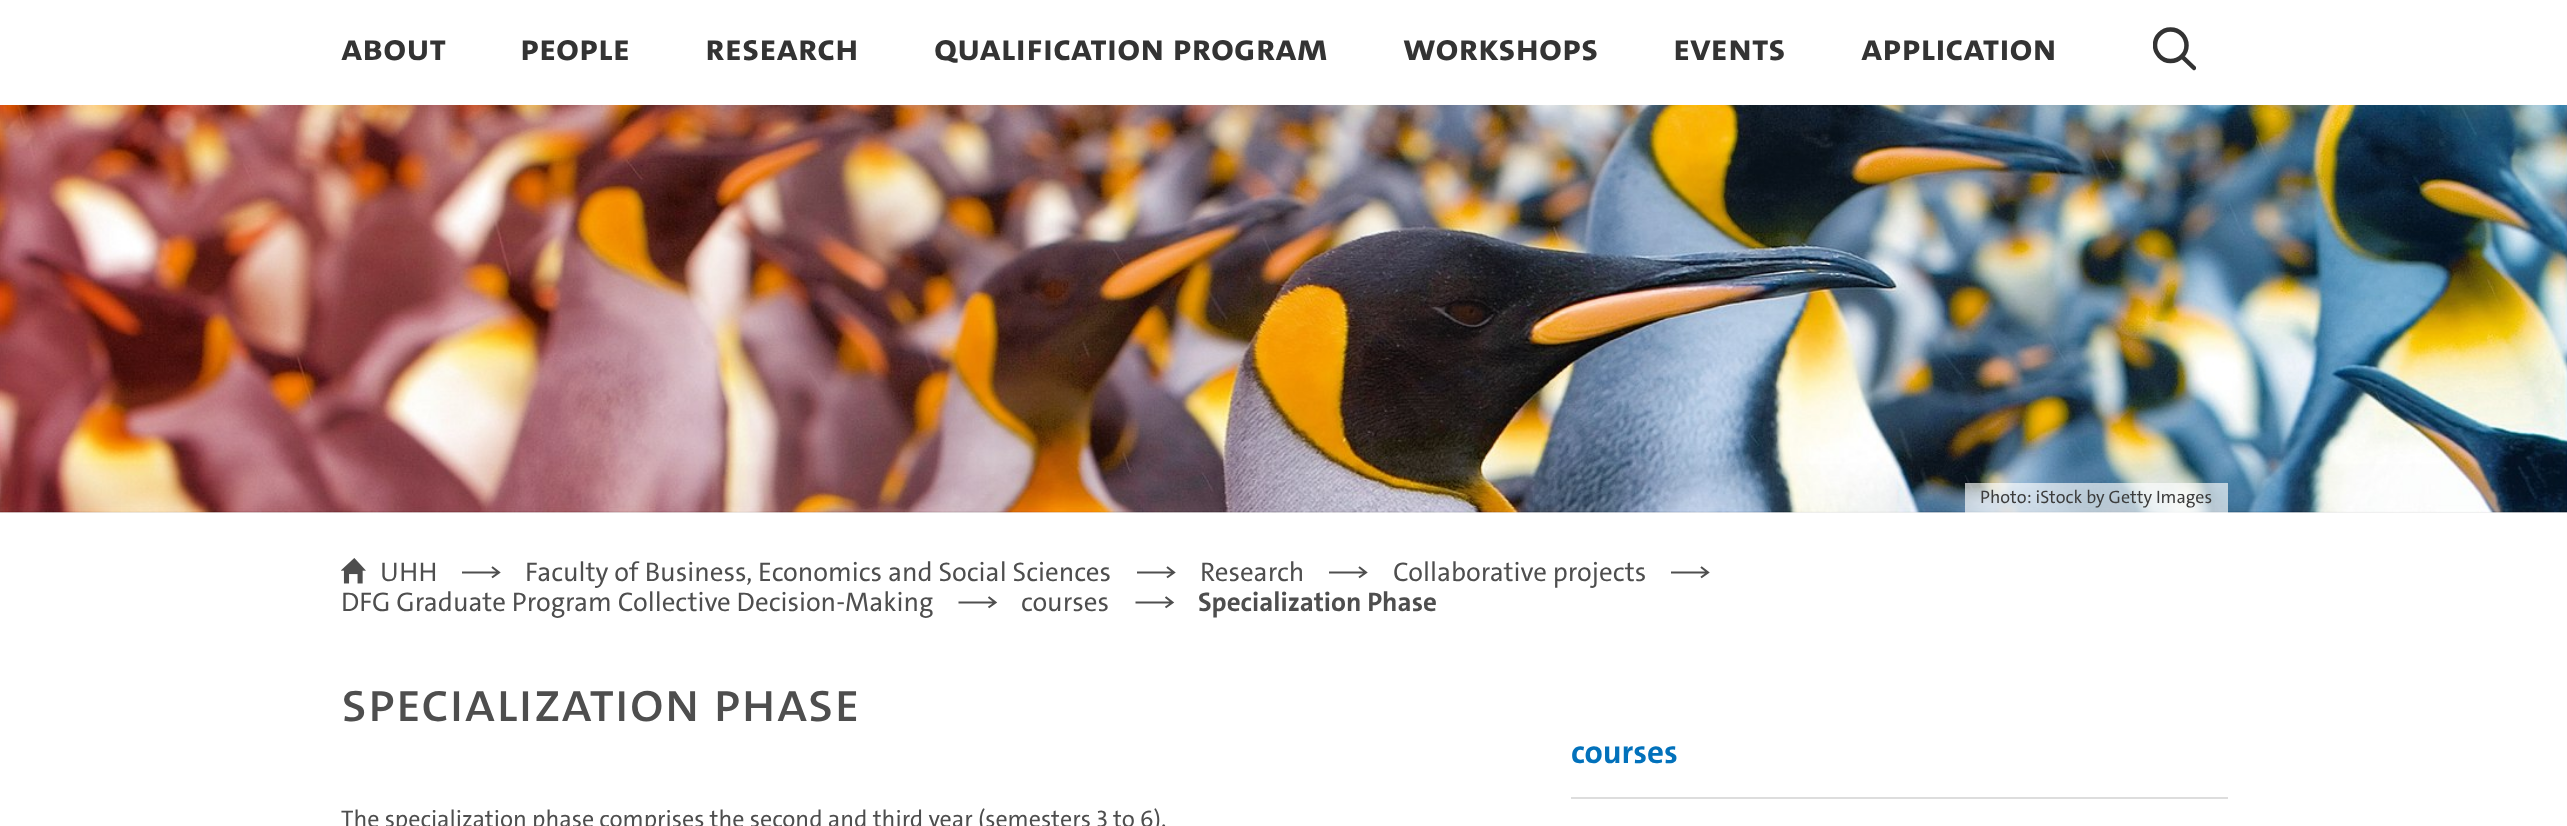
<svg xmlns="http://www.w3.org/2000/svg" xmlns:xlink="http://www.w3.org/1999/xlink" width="2567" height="826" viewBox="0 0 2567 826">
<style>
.cls-1{font:bold 37.5px 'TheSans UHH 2';fill:#333333}
.cls-2{font:18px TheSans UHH;fill:#3c3c3c}
.cls-3{font:27px TheSans UHH;fill:#4e4e4e}
.cls-4{font:bold 27px TheSans UHH;fill:#4e4e4e}
.cls-5{font:57px 'TheSans UHH 2';fill:#4e4e4e}
.cls-6{font:24px TheSans UHH;fill:#4e4e4e}
.cls-7{font:bold 33px TheSans UHH;fill:#0271bb}
</style>
<defs>
<clipPath id="clip1"><rect x="2153" y="27" width="43" height="44"/></clipPath>
</defs>
<rect width="100%" height="100%" fill="#ffffff"/>
<g clip-path="url(#clip1)">
<path fill="none" stroke="#333333" stroke-width="4.5" stroke-linecap="round" d="M2170.5 61C2179.5 61 2186.5 54 2186.5 45.5C2186.5 36.5 2179.5 29.5 2170.5 29.5C2162 29.5 2155 36.5 2155 45C2155 53.5 2162 61 2170.5 61ZM2182 56.5L2194 68"/>
</g>
<rect fill="#eeeeee" x="0" y="512" width="2567" height="1"/>
<image xlink:href="image0.png" x="0" y="105" width="2567" height="408"/>
<rect fill="#ffffff" fill-opacity="0.65" x="1965" y="483" width="263" height="30"/>
<image xlink:href="image1.png" x="341" y="558" width="25" height="26"/>
<path fill="none" stroke="#4e4e4e" stroke-width="2.1" d="M462 572.5H498M492 567L499 572.5L492 577.5"/>
<path fill="none" stroke="#4e4e4e" stroke-width="2.1" d="M1137 572.5H1173M1167 567L1174 572.5L1167 577.5"/>
<path fill="none" stroke="#4e4e4e" stroke-width="2.1" d="M1329 572.5H1365M1359 567L1366 572.5L1359 577.5"/>
<path fill="none" stroke="#4e4e4e" stroke-width="2.1" d="M1671 572.5H1707M1701 567L1708 572.5L1701 577.5"/>
<path fill="none" stroke="#4e4e4e" stroke-width="2.1" d="M958.5 602.5H994.5M988.5 597L995.5 602.5L988.5 607.5"/>
<path fill="none" stroke="#4e4e4e" stroke-width="2.1" d="M1135.5 602.5H1171.5M1165.5 597L1172.5 602.5L1165.5 607.5"/>
<rect fill="#dddddd" x="1571" y="797" width="657" height="2"/>
<text class="cls-1" x="341" y="60">ABOUT</text>
<text class="cls-1" x="520" y="60">PEOPLE</text>
<text class="cls-1" x="705" y="60">RESEARCH</text>
<text class="cls-1" x="934" y="60">QUALIFICATION PROGRAM</text>
<text class="cls-1" x="1403" y="60">WORKSHOPS</text>
<text class="cls-1" x="1673" y="60">EVENTS</text>
<text class="cls-1" x="1861" y="60">APPLICATION</text>
<text class="cls-2" x="1980" y="503">Photo: iStock by Getty Images</text>
<text class="cls-3" x="380" y="581">UHH</text>
<text class="cls-3" x="525" y="581">Faculty of Business, Economics and Social Sciences</text>
<text class="cls-3" x="1200" y="581">Research</text>
<text class="cls-3" x="1393" y="581">Collaborative projects</text>
<text class="cls-3" x="341" y="611">DFG Graduate Program Collective Decision-Making</text>
<text class="cls-3" x="1021" y="611">courses</text>
<text class="cls-4" x="1198" y="611">Specialization Phase</text>
<text class="cls-5" x="341" y="721">Specialization Phase</text>
<text class="cls-6" x="341" y="827">The specialization phase comprises the second and third year (semesters 3 to 6).</text>
<text class="cls-7" x="1571" y="763">courses</text>
</svg>
